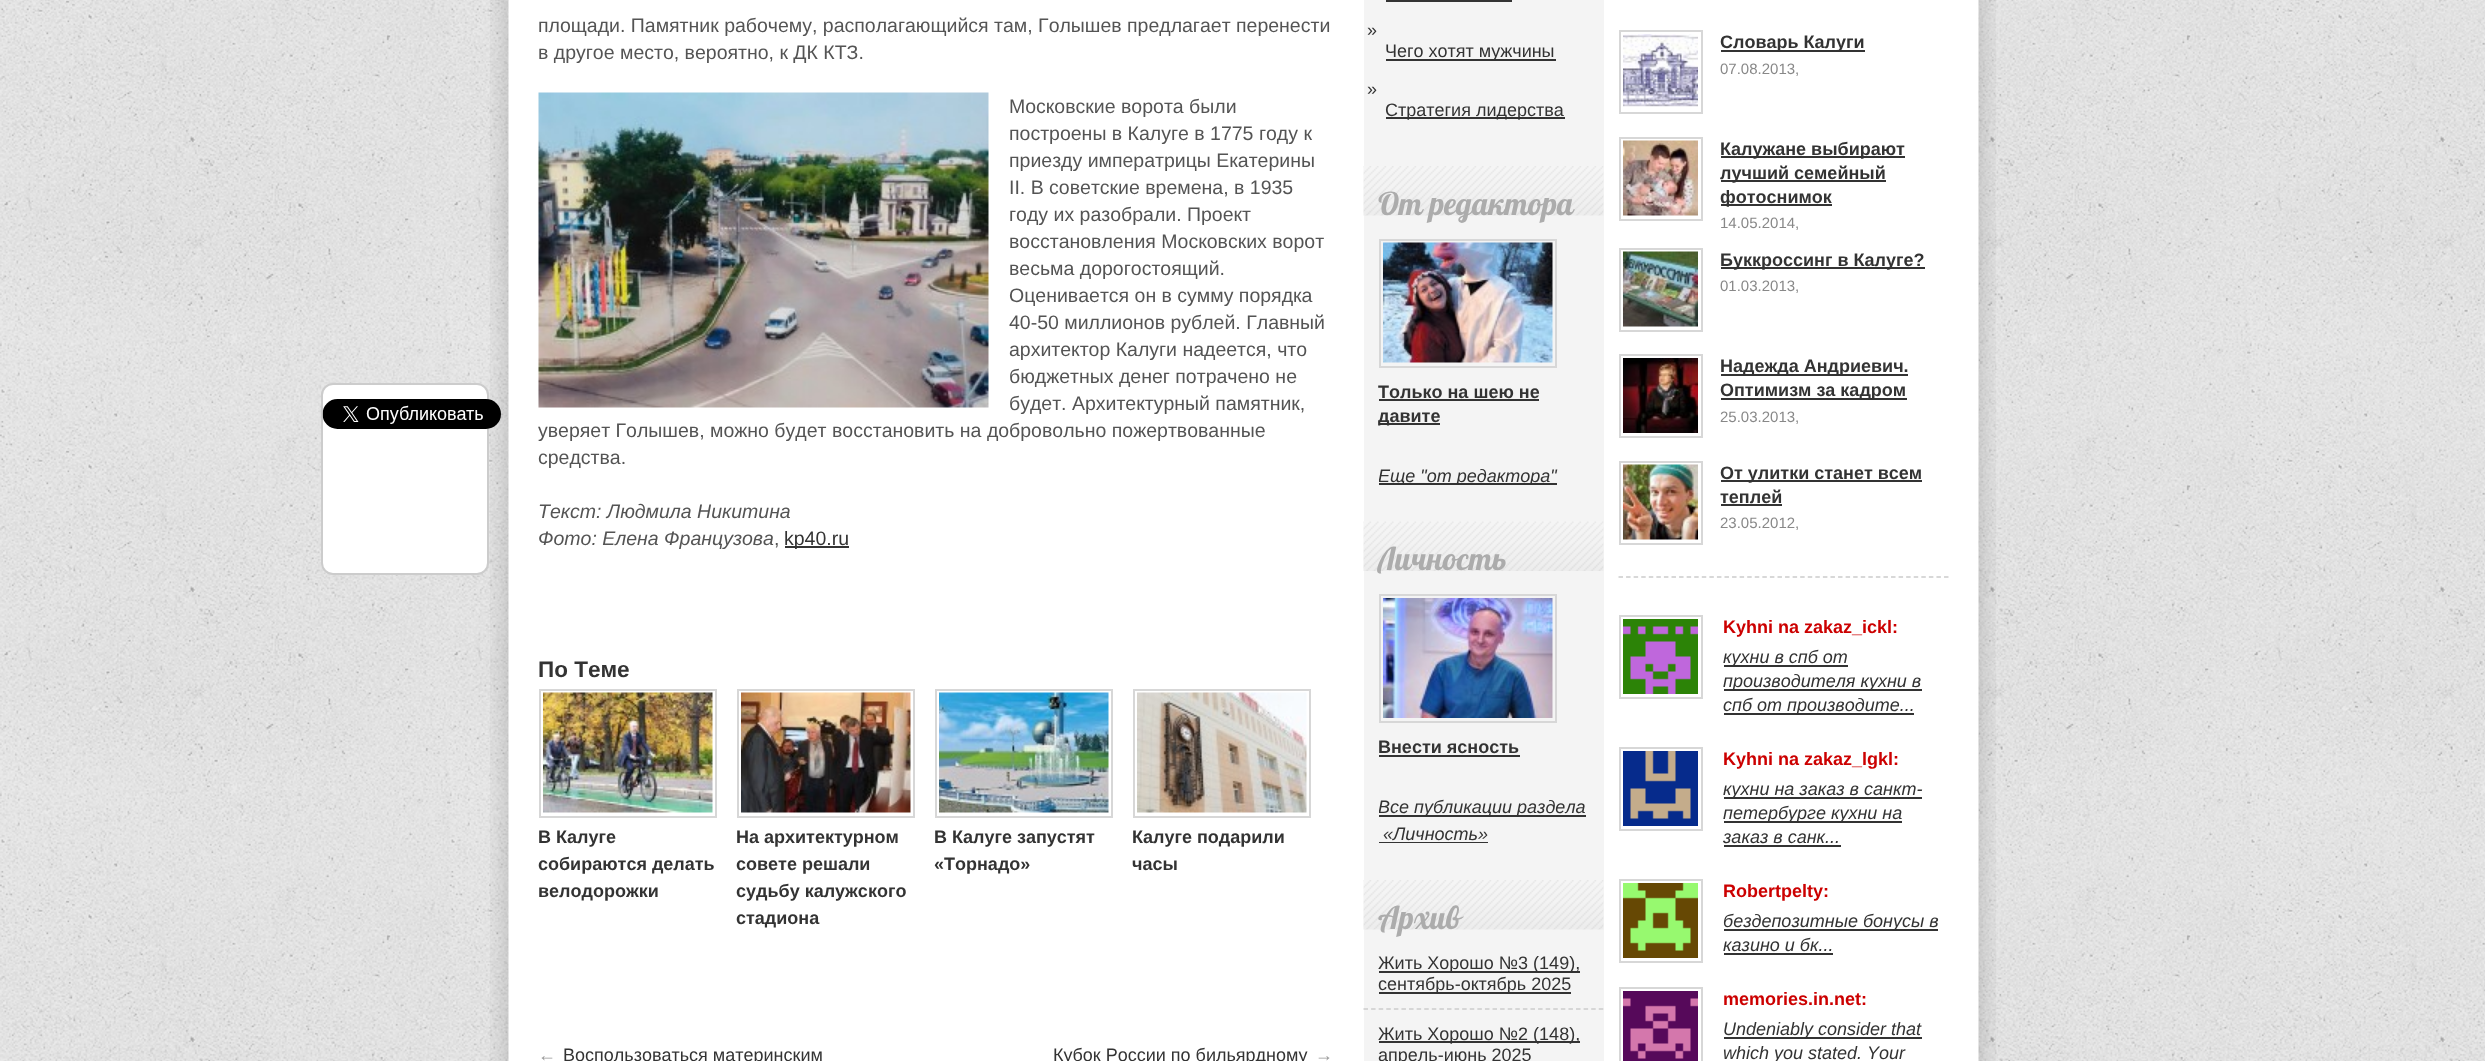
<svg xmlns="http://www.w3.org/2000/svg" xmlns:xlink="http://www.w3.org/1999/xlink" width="2485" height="1061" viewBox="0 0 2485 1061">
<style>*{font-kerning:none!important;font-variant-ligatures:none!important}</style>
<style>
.cls-1{font:19.5px Liberation Sans;fill:#545454}
.cls-2{font:italic 19.5px Liberation Sans;fill:#545454}
.cls-3{font:19.5px Liberation Sans;fill:#333333}
.cls-4{font:bold 22.5px Liberation Sans;fill:#333333}
.cls-5{font:bold 18px Liberation Sans;fill:#333333}
.cls-6{font:18px Liberation Sans;fill:#999999}
.cls-7{font:18px Liberation Sans;fill:#333333}
.cls-8{font:31.5px Lobster;fill:#acacac}
.cls-9{font:italic 18px Liberation Sans;fill:#333333}
.cls-10{font:15px Liberation Sans;fill:#888888}
.cls-11{font:bold 18px Liberation Sans;fill:#cc0000}
</style>
<defs>
<clipPath id="clip1"><rect x="1379" y="441" width="210" height="44"/></clipPath>
<clipPath id="clip2"><rect x="1379" y="773" width="210" height="70"/></clipPath>
</defs>
<rect width="100%" height="100%" fill="#ebebeb"/>
<image xlink:href="image0.png" x="0" y="0" width="2485" height="1061"/>
<image xlink:href="image1.png" x="490" y="0" width="1506" height="1061"/>
<rect fill="#ffffff" stroke="#cccccc" stroke-width="2" x="322" y="384" width="166" height="190" rx="11"/>
<image xlink:href="image2.png" x="322" y="399" width="179" height="30"/>
<image xlink:href="image3.png" x="538" y="92" width="451" height="316"/>
<rect fill="#333333" x="785" y="546" width="64" height="2"/>
<rect fill="none" stroke="#d7d7d7" stroke-width="2" x="540" y="690" width="176" height="127"/>
<image xlink:href="image4.png" x="543" y="692" width="170" height="121"/>
<rect fill="none" stroke="#d7d7d7" stroke-width="2" x="738" y="690" width="176" height="127"/>
<image xlink:href="image5.png" x="741" y="692" width="170" height="121"/>
<rect fill="none" stroke="#d7d7d7" stroke-width="2" x="936" y="690" width="176" height="127"/>
<image xlink:href="image6.png" x="939" y="692" width="170" height="121"/>
<rect fill="none" stroke="#d7d7d7" stroke-width="2" x="1134" y="690" width="176" height="127"/>
<image xlink:href="image7.png" x="1137" y="692" width="170" height="121"/>
<rect fill="#f4f4f4" x="1364" y="0" width="240" height="1061"/>
<rect fill="#333333" x="1386" y="0" width="126" height="2"/>
<rect fill="#333333" x="1386" y="59" width="170" height="2"/>
<rect fill="#333333" x="1386" y="117" width="179" height="2"/>
<image xlink:href="image8.png" x="1363" y="166" width="241" height="50"/>
<rect fill="none" stroke="#d7d7d7" stroke-width="2" x="1380" y="240" width="176" height="127"/>
<image xlink:href="image9.png" x="1383" y="242" width="170" height="121"/>
<rect fill="#333333" x="1379" y="399" width="160" height="2"/>
<rect fill="#333333" x="1379" y="423" width="61" height="2"/>
<rect fill="#333333" x="1379" y="483" width="178" height="2"/>
<image xlink:href="image10.png" x="1363" y="521" width="241" height="50"/>
<rect fill="none" stroke="#d7d7d7" stroke-width="2" x="1380" y="595" width="176" height="127"/>
<image xlink:href="image11.png" x="1383" y="598" width="170" height="120"/>
<rect fill="#333333" x="1379" y="755" width="141" height="2"/>
<rect fill="#333333" x="1379" y="815" width="207" height="2"/>
<rect fill="#333333" x="1379" y="842" width="109" height="1"/>
<image xlink:href="image12.png" x="1363" y="880" width="241" height="50"/>
<path fill="none" stroke="#cccccc" stroke-width="1.5" stroke-dasharray="4.5 3.09" d="M1363.5 1009H1603.5"/>
<rect fill="#333333" x="1379" y="971" width="201" height="2"/>
<rect fill="#333333" x="1379" y="992" width="192" height="2"/>
<rect fill="#333333" x="1379" y="1041" width="201" height="2"/>
<rect fill="none" stroke="#d7d7d7" stroke-width="2" x="1620" y="31" width="82" height="82"/>
<image xlink:href="image13.png" x="1623" y="34" width="75" height="73"/>
<rect fill="#333333" x="1721" y="50" width="144" height="2"/>
<rect fill="none" stroke="#d7d7d7" stroke-width="2" x="1620" y="138" width="82" height="82"/>
<image xlink:href="image14.png" x="1623" y="140" width="75" height="76"/>
<rect fill="#333333" x="1721" y="156" width="184" height="2"/>
<rect fill="#333333" x="1721" y="180" width="165" height="2"/>
<rect fill="#333333" x="1721" y="204" width="111" height="2"/>
<rect fill="none" stroke="#d7d7d7" stroke-width="2" x="1620" y="249" width="82" height="82"/>
<image xlink:href="image15.png" x="1623" y="251" width="75" height="76"/>
<rect fill="#333333" x="1721" y="267" width="204" height="2"/>
<rect fill="none" stroke="#d7d7d7" stroke-width="2" x="1620" y="355" width="82" height="82"/>
<image xlink:href="image16.png" x="1623" y="358" width="75" height="75"/>
<rect fill="#333333" x="1721" y="374" width="187" height="2"/>
<rect fill="#333333" x="1721" y="398" width="186" height="2"/>
<path fill="none" stroke="#cccccc" stroke-width="1.5" stroke-dasharray="4.5 3.07" d="M1618.5 577H1948.5"/>
<rect fill="none" stroke="#d7d7d7" stroke-width="2" x="1620" y="462" width="82" height="82"/>
<image xlink:href="image17.png" x="1623" y="464" width="75" height="76"/>
<rect fill="#333333" x="1721" y="480" width="201" height="2"/>
<rect fill="#333333" x="1721" y="504" width="61" height="2"/>
<rect fill="none" stroke="#d7d7d7" stroke-width="2" x="1620" y="616" width="82" height="82"/>
<image xlink:href="image18.png" x="1623" y="619" width="75" height="75"/>
<rect fill="#333333" x="1724" y="665" width="124" height="2"/>
<rect fill="#333333" x="1724" y="689" width="198" height="2"/>
<rect fill="#333333" x="1724" y="713" width="190" height="2"/>
<rect fill="none" stroke="#d7d7d7" stroke-width="2" x="1620" y="748" width="82" height="82"/>
<image xlink:href="image19.png" x="1623" y="751" width="75" height="75"/>
<rect fill="#333333" x="1724" y="797" width="198" height="2"/>
<rect fill="#333333" x="1724" y="821" width="178" height="2"/>
<rect fill="#333333" x="1724" y="845" width="117" height="2"/>
<rect fill="none" stroke="#d7d7d7" stroke-width="2" x="1620" y="880" width="82" height="82"/>
<image xlink:href="image20.png" x="1623" y="883" width="75" height="75"/>
<rect fill="#333333" x="1724" y="929" width="214" height="2"/>
<rect fill="#333333" x="1724" y="953" width="109" height="2"/>
<rect fill="none" stroke="#d7d7d7" stroke-width="2" x="1620" y="988" width="82" height="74"/>
<image xlink:href="image21.png" x="1623" y="991" width="75" height="70"/>
<rect fill="#333333" x="1724" y="1037" width="198" height="2"/>
<text class="cls-1" x="538" y="32">площади. Памятник рабочему, располагающийся там, Голышев</text>
<text class="cls-1" x="1127" y="32">предлагает перенести</text>
<text class="cls-1" x="538" y="59">в другое место, вероятно, к ДК КТЗ.</text>
<text class="cls-1"><tspan x="1009" y="113">Московские ворота были</tspan><tspan x="1009" y="140">построены в Калуге в 1775 году к</tspan><tspan x="1009" y="167">приезду императрицы Екатерины</tspan><tspan x="1009" y="194">II. В советские времена, в 1935</tspan><tspan x="1009" y="221">году их разобрали. Проект</tspan><tspan x="1009" y="248">восстановления Московских ворот</tspan><tspan x="1009" y="275">весьма дорогостоящий.</tspan><tspan x="1009" y="302">Оценивается он в сумму порядка</tspan><tspan x="1009" y="329">40-50 миллионов рублей. Главный</tspan><tspan x="1009" y="356">архитектор Калуги надеется, что</tspan><tspan x="1009" y="383">бюджетных денег потрачено не</tspan><tspan x="1009" y="410">будет. Архитектурный памятник,</tspan></text>
<text class="cls-1" x="538" y="437">уверяет Голышев, можно будет</text>
<text class="cls-1" x="832" y="437">восстановить на добровольно пожертвованные</text>
<text class="cls-1" x="538" y="464">средства.</text>
<text class="cls-2"><tspan x="538" y="518">Текст: Людмила Никитина</tspan><tspan x="538" y="545">Фото: Елена Французова</tspan></text>
<text class="cls-1" x="774" y="545">,</text>
<text class="cls-3" x="784" y="545">kp40.ru</text>
<text class="cls-4" x="538" y="677">По Теме</text>
<text class="cls-5"><tspan x="538" y="843">В Калуге</tspan><tspan x="538" y="870">собираются делать</tspan><tspan x="538" y="897">велодорожки</tspan></text>
<text class="cls-5"><tspan x="736" y="843">На архитектурном</tspan><tspan x="736" y="870">совете решали</tspan><tspan x="736" y="897">судьбу калужского</tspan><tspan x="736" y="924">стадиона</tspan></text>
<text class="cls-5"><tspan x="934" y="843">В Калуге запустят</tspan><tspan x="934" y="870">«Торнадо»</tspan></text>
<text class="cls-5"><tspan x="1132" y="843">Калуге подарили</tspan><tspan x="1132" y="870">часы</tspan></text>
<text class="cls-6" x="538" y="1061">←</text>
<text class="cls-7" x="563" y="1061">Воспользоваться материнским</text>
<text class="cls-7" x="1053" y="1061">Кубок России по бильярдному</text>
<text class="cls-6" x="1315" y="1061">→</text>
<text class="cls-7" x="1367" y="36">»</text>
<text class="cls-7" x="1385" y="57">Чего хотят мужчины</text>
<text class="cls-7" x="1367" y="95">»</text>
<text class="cls-7" x="1385" y="116">Стратегия лидерства</text>
<text class="cls-8" x="1378" y="215">От редактора</text>
<text class="cls-5"><tspan x="1378" y="398">Только на шею не</tspan><tspan x="1378" y="422">давите</tspan></text>
<g clip-path="url(#clip1)">
<text class="cls-9" x="1378" y="482">Еще "от редактора"</text>
</g>
<text class="cls-8" x="1378" y="570">Личность</text>
<text class="cls-5" x="1378" y="753">Внести ясность</text>
<g clip-path="url(#clip2)">
<text class="cls-9" x="1378" y="813">Все публикации раздела</text>
</g>
<text class="cls-9" x="1383" y="840">«Личность»</text>
<text class="cls-8" x="1378" y="929">Архив</text>
<text class="cls-7"><tspan x="1378" y="969">Жить Хорошо №3 (149),</tspan><tspan x="1378" y="990">сентябрь-октябрь 2025</tspan></text>
<text class="cls-7"><tspan x="1378" y="1040">Жить Хорошо №2 (148),</tspan><tspan x="1378" y="1061">апрель-июнь 2025</tspan></text>
<text class="cls-5" x="1720" y="48">Словарь Калуги</text>
<text class="cls-10" x="1720" y="74">07.08.2013,</text>
<text class="cls-5"><tspan x="1720" y="155">Калужане выбирают</tspan><tspan x="1720" y="179">лучший семейный</tspan><tspan x="1720" y="203">фотоснимок</tspan></text>
<text class="cls-10" x="1720" y="228">14.05.2014,</text>
<text class="cls-5" x="1720" y="266">Буккроссинг в Калуге?</text>
<text class="cls-10" x="1720" y="291">01.03.2013,</text>
<text class="cls-5"><tspan x="1720" y="372">Надежда Андриевич.</tspan><tspan x="1720" y="396">Оптимизм за кадром</tspan></text>
<text class="cls-10" x="1720" y="422">25.03.2013,</text>
<text class="cls-5"><tspan x="1720" y="479">От улитки станет всем</tspan><tspan x="1720" y="503">теплей</tspan></text>
<text class="cls-10" x="1720" y="528">23.05.2012,</text>
<text class="cls-11" x="1723" y="633">Kyhni na zakaz_ickl:</text>
<text class="cls-9"><tspan x="1723" y="663">кухни в спб от</tspan><tspan x="1723" y="687">производителя кухни в</tspan><tspan x="1723" y="711">спб от производите...</tspan></text>
<text class="cls-11" x="1723" y="765">Kyhni na zakaz_lgkl:</text>
<text class="cls-9"><tspan x="1723" y="795">кухни на заказ в санкт-</tspan><tspan x="1723" y="819">петербурге кухни на</tspan><tspan x="1723" y="843">заказ в санк...</tspan></text>
<text class="cls-11" x="1723" y="897">Robertpelty:</text>
<text class="cls-9"><tspan x="1723" y="927">бездепозитные бонусы в</tspan><tspan x="1723" y="951">казино и бк...</tspan></text>
<text class="cls-11" x="1723" y="1005">memories.in.net:</text>
<text class="cls-9"><tspan x="1723" y="1035">Undeniably consider that</tspan><tspan x="1723" y="1059">which you stated. Your</tspan></text>
</svg>
